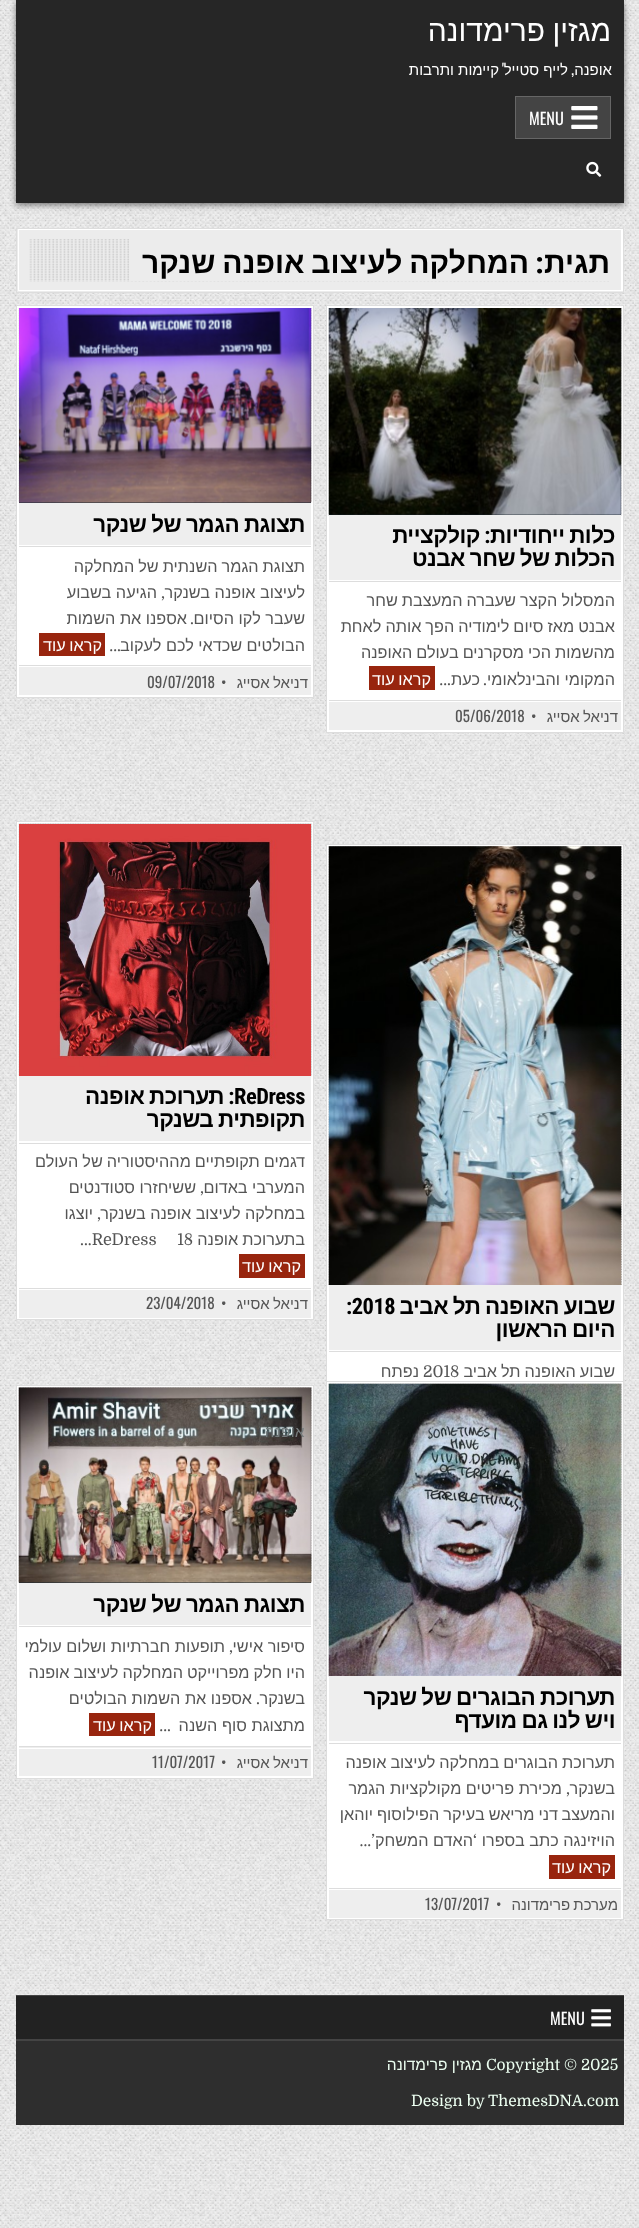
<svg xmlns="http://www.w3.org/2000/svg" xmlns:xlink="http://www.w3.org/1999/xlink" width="639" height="2228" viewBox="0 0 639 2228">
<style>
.cls-1{font:30px Liberation Sans;direction:rtl;fill:#ffffff}
.cls-2{font:15px Liberation Sans;direction:rtl;fill:#ffffff}
.cls-3{font:15px Oswald;direction:rtl;fill:#ffffff}
.cls-4{font:16.25px Oswald;fill:#ffffff}
.cls-5{font:bold 30px Liberation Sans;direction:rtl;fill:#000000}
.cls-6{font:bold 30px Playfair Display;direction:rtl;fill:#000000}
.cls-7{font:bold 22.5px Liberation Sans;letter-spacing:-0.5px;direction:rtl;fill:#000000}
.cls-8{font:bold 22.5px Roboto Condensed;letter-spacing:-0.5px;direction:rtl;fill:#000000}
.cls-9{font:16.25px Liberation Sans;direction:rtl;fill:#555555}
.cls-10{font:16.25px Domine;direction:rtl;fill:#555555}
.cls-11{font:16.25px Liberation Sans;direction:rtl;fill:#ffffff}
.cls-12{font:15px Liberation Sans;direction:rtl;fill:#555555}
.cls-13{font:15px Oswald;fill:#555555}
.cls-14{font:bold 22.5px Roboto Condensed;letter-spacing:-0.5px;fill:#000000}
.cls-15{font:16.25px Domine;fill:#555555}
.cls-16{font:15px Liberation Sans;letter-spacing:0.5px;direction:rtl;fill:#757c7d}
.cls-17{font:15.5px Domine;fill:#ecfff1}
.cls-18{font:15.5px Liberation Sans;direction:rtl;fill:#ecfff1}
</style>
<defs>
<clipPath id="clip1"><rect x="18" y="229" width="605" height="62"/></clipPath>
</defs>
<rect width="100%" height="100%" fill="#ffffff"/>
<image xlink:href="image0.png" x="0" y="0" width="639" height="2228"/>
<rect fill="#000000" fill-opacity="0.5" filter="blur(3px)" x="16" y="3" width="608" height="202"/>
<rect fill="#262626" x="16" y="0" width="608" height="203"/>
<rect fill="#444444" stroke="#666666" x="515.5" y="96.5" width="95" height="42"/>
<image xlink:href="image1.png" x="571" y="106" width="27" height="23"/>
<image xlink:href="image2.png" x="586" y="161" width="16" height="16"/>
<rect fill="#ececec" x="17" y="229" width="606" height="63"/>
<g clip-path="url(#clip1)">
<path fill="#ffffff" fill-rule="evenodd" d="M-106 105H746V415H-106ZM16 228H621V290H16Z"/>
<path fill="#ffffff" fill-rule="evenodd" d="M-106 105H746V415H-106ZM19 230H624V292H19Z"/>
</g>
<rect fill="none" stroke="#dddddd" x="16.5" y="228.5" width="607" height="64"/>
<image xlink:href="image3.png" x="29" y="239" width="580" height="43"/>
<rect fill="#ececec" x="129" y="239" width="480" height="42"/>
<rect fill="#ffffff" stroke="#dddddd" x="326.5" y="305.5" width="297" height="427"/>
<rect fill="#1e2b34" x="329" y="308" width="292" height="207"/>
<image xlink:href="image4.png" x="328" y="308" width="294" height="208"/>
<image xlink:href="image5.png" x="328" y="308" width="294" height="208"/>
<rect fill="#eeeeee" x="329" y="515" width="292" height="65"/>
<rect fill="#dddddd" x="329" y="581" width="292" height="1"/>
<rect fill="#98250e" x="369" y="666" width="66" height="24"/>
<rect fill="#eeeeee" x="329" y="702" width="292" height="28"/>
<rect fill="#dddddd" x="329" y="700" width="292" height="1"/>
<rect fill="#ffffff" stroke="#dddddd" x="16.5" y="305.5" width="297" height="392"/>
<rect fill="#1e2b34" x="19" y="308" width="292" height="195"/>
<image xlink:href="image6.png" x="18" y="308" width="294" height="194"/>
<image xlink:href="image7.png" x="19" y="308" width="293" height="195"/>
<rect fill="#eeeeee" x="19" y="503" width="292" height="42"/>
<rect fill="#dddddd" x="19" y="546" width="292" height="1"/>
<rect fill="#98250e" x="39" y="633" width="66" height="23"/>
<rect fill="#eeeeee" x="19" y="667" width="292" height="28"/>
<rect fill="#dddddd" x="19" y="665" width="292" height="1"/>
<rect fill="#ffffff" stroke="#dddddd" x="16.5" y="821.5" width="297" height="498"/>
<image xlink:href="image8.png" x="18" y="823" width="294" height="254"/>
<image xlink:href="image9.png" x="19" y="824" width="292" height="252"/>
<rect fill="#eeeeee" x="19" y="1076" width="292" height="65"/>
<rect fill="#dddddd" x="19" y="1143" width="292" height="1"/>
<rect fill="#98250e" x="239" y="1254" width="66" height="24"/>
<rect fill="#eeeeee" x="19" y="1290" width="292" height="28"/>
<rect fill="#dddddd" x="19" y="1288" width="292" height="1"/>
<rect fill="#ffffff" x="327" y="845" width="296" height="536"/>
<rect fill="none" stroke="#dddddd" x="326.5" y="844.5" width="297" height="659"/>
<image xlink:href="image10.png" x="328" y="846" width="294" height="439"/>
<image xlink:href="image11.png" x="328" y="846" width="294" height="439"/>
<rect fill="#eeeeee" x="329" y="1285" width="292" height="65"/>
<rect fill="#dddddd" x="329" y="1351" width="292" height="1"/>
<rect fill="#ffffff" stroke="#dddddd" x="16.5" y="1385.5" width="297" height="393"/>
<rect fill="#1e2b34" x="19" y="1388" width="292" height="195"/>
<image xlink:href="image12.png" x="18" y="1387" width="294" height="196"/>
<image xlink:href="image13.png" x="18" y="1387" width="294" height="196"/>
<rect fill="#eeeeee" x="19" y="1583" width="292" height="42"/>
<rect fill="#dddddd" x="19" y="1626" width="292" height="1"/>
<rect fill="#98250e" x="89" y="1713" width="66" height="23"/>
<rect fill="#eeeeee" x="19" y="1747" width="292" height="29"/>
<rect fill="#dddddd" x="19" y="1746" width="292" height="1"/>
<rect fill="#ffffff" x="19" y="1748" width="292" height="1"/>
<rect fill="#ffffff" stroke="#dddddd" x="326.5" y="1381.5" width="297" height="538"/>
<image xlink:href="image14.png" x="328" y="1383" width="294" height="294"/>
<image xlink:href="image15.png" x="328" y="1383" width="294" height="294"/>
<rect fill="#eeeeee" x="329" y="1676" width="292" height="65"/>
<rect fill="#dddddd" x="329" y="1743" width="292" height="1"/>
<rect fill="#98250e" x="549" y="1855" width="66" height="24"/>
<rect fill="#eeeeee" x="329" y="1890" width="292" height="28"/>
<rect fill="#dddddd" x="329" y="1888" width="292" height="1"/>
<rect fill="#222222" x="16" y="1996" width="608" height="43"/>
<rect fill="#444444" x="16" y="1995" width="608" height="1"/>
<rect fill="#444444" x="16" y="2039" width="608" height="2"/>
<image xlink:href="image16.png" x="591" y="2009" width="20" height="18"/>
<rect fill="#2e2e2e" x="16" y="2041" width="608" height="84"/>
<text class="cls-1" x="611" y="41" word-spacing="-1">מגזין פרימדונה</text>
<text class="cls-2" x="612" y="75">אופנה</text>
<text class="cls-3" x="574" y="75">,</text>
<text class="cls-2" x="568" y="75">לייף סטייל</text>
<text class="cls-3" x="504" y="75">'</text>
<text class="cls-2" x="499" y="75">קיימות ותרבות</text>
<text class="cls-4" x="529" y="125">MENU</text>
<text class="cls-5" x="610" y="273">תגית</text>
<text class="cls-6" x="544" y="273">:</text>
<text class="cls-5" x="529" y="273" word-spacing="-1.5">המחלקה לעיצוב אופנה שנקר</text>
<text class="cls-7" x="615" y="543" word-spacing="-1">כלות ייחודיות</text>
<text class="cls-8" x="490" y="543">:</text>
<text class="cls-7" x="480" y="543">קולקציית</text>
<text class="cls-7" x="615" y="566" word-spacing="-1">הכלות של שחר אבנט</text>
<text class="cls-9"><tspan x="615" y="606" word-spacing="-0.5">המסלול הקצר שעברה המעצבת שחר</tspan><tspan x="615" y="632" word-spacing="-0.5">אבנט מאז סיום לימודיה הפך אותה לאחת</tspan><tspan x="615" y="658" word-spacing="-0.5">מהשמות הכי מסקרנים בעולם האופנה</tspan><tspan x="615" y="685">המקומי והבינלאומי</tspan></text>
<text class="cls-10" x="487" y="685">.</text>
<text class="cls-9" x="480" y="685">כעת</text>
<text class="cls-10" x="451" y="685">…</text>
<text class="cls-11" x="431" y="685" word-spacing="-1">קראו עוד</text>
<text class="cls-12" x="618" y="722" word-spacing="-1">דניאל אסייג</text>
<text class="cls-13" x="531" y="722">•</text>
<text class="cls-13" x="455" y="722">05/06/2018</text>
<text class="cls-7" x="305" y="532" word-spacing="-1">תצוגת הגמר של שנקר</text>
<text class="cls-9"><tspan x="305" y="572" word-spacing="-0.5">תצוגת הגמר השנתית של המחלקה</tspan><tspan x="305" y="598">לעיצוב אופנה בשנקר</tspan></text>
<text class="cls-10" x="165" y="598">,</text>
<text class="cls-9" x="157" y="598">הגיעה בשבוע</text>
<text class="cls-9" x="305" y="624">שעבר לקו הסיום</text>
<text class="cls-10" x="194" y="624">.</text>
<text class="cls-9" x="187" y="624">אספנו את השמות</text>
<text class="cls-9" x="305" y="651">הבולטים שכדאי לכם לעקוב</text>
<text class="cls-10" x="121" y="651">…</text>
<text class="cls-11" x="102" y="651" word-spacing="-1">קראו עוד</text>
<text class="cls-12" x="308" y="688" word-spacing="-1">דניאל אסייג</text>
<text class="cls-13" x="221" y="688">•</text>
<text class="cls-13" x="147" y="688">09/07/2018</text>
<text class="cls-14" x="234" y="1104">ReDress</text>
<text class="cls-8" x="234" y="1104">:</text>
<text class="cls-7" x="224" y="1104" word-spacing="-1">תערוכת אופנה</text>
<text class="cls-7" x="305" y="1127" word-spacing="-1">תקופתית בשנקר</text>
<text class="cls-9"><tspan x="305" y="1167" word-spacing="-0.5">דגמים תקופתיים מההיסטוריה של העולם</tspan><tspan x="305" y="1193">המערבי באדום</tspan></text>
<text class="cls-10" x="204" y="1193">,</text>
<text class="cls-9" x="196" y="1193">ששיחזרו סטודנטים</text>
<text class="cls-9" x="305" y="1219">במחלקה לעיצוב אופנה בשנקר</text>
<text class="cls-9" x="93" y="1219">יוצגו</text>
<text class="cls-10" x="101" y="1219">,</text>
<text class="cls-9" x="305" y="1245" word-spacing="-0.5">בתערוכת אופנה</text>
<text class="cls-15" xml:space="preserve" x="80" y="1245">…ReDress     18</text>
<text class="cls-11" x="301" y="1272" word-spacing="-1">קראו עוד</text>
<text class="cls-12" x="308" y="1309" word-spacing="-1">דניאל אסייג</text>
<text class="cls-13" x="221" y="1309">•</text>
<text class="cls-13" x="146" y="1309">23/04/2018</text>
<text class="cls-7" x="615" y="1314" word-spacing="-1">שבוע האופנה תל אביב</text>
<text class="cls-14" x="346" y="1314">:2018</text>
<text class="cls-7" x="615" y="1337" word-spacing="-1">היום הראשון</text>
<text class="cls-9" x="615" y="1377" word-spacing="-0.5">שבוע האופנה תל אביב</text>
<text class="cls-15" x="423" y="1377">2018</text>
<text class="cls-9" x="419" y="1377">נפתח</text>
<text class="cls-16" x="305" y="1437">אופנה</text>
<text class="cls-7" x="305" y="1612" word-spacing="-1">תצוגת הגמר של שנקר</text>
<text class="cls-9" x="305" y="1652">סיפור אישי</text>
<text class="cls-10" x="233" y="1652">,</text>
<text class="cls-9" x="225" y="1652">תופעות חברתיות ושלום עולמי</text>
<text class="cls-9" x="305" y="1678" word-spacing="-0.5">היו חלק מפרוייקט</text>
<text class="cls-9" x="183" y="1678" word-spacing="-0.5">המחלקה לעיצוב אופנה</text>
<text class="cls-9" x="305" y="1704">בשנקר</text>
<text class="cls-10" x="260" y="1704">.</text>
<text class="cls-9" x="252" y="1704">אספנו את השמות הבולטים</text>
<text class="cls-9" x="305" y="1731">מתצוגת סוף השנה</text>
<text class="cls-10" x="171" y="1731">…</text>
<text class="cls-11" x="152" y="1731" word-spacing="-1">קראו עוד</text>
<text class="cls-12" x="308" y="1768" word-spacing="-1">דניאל אסייג</text>
<text class="cls-13" x="221" y="1768">•</text>
<text class="cls-13" x="152" y="1768">11/07/2017</text>
<text class="cls-7"><tspan x="615" y="1705" word-spacing="-1">תערוכת הבוגרים של שנקר</tspan><tspan x="615" y="1728" word-spacing="-1">ויש לנו גם מועדף</tspan></text>
<text class="cls-9"><tspan x="615" y="1768" word-spacing="-0.5">תערוכת הבוגרים במחלקה לעיצוב אופנה</tspan><tspan x="615" y="1794">בשנקר</tspan></text>
<text class="cls-10" x="570" y="1794">,</text>
<text class="cls-9" x="562" y="1794">מכירת פריטים מקולקציות הגמר</text>
<text class="cls-9" x="615" y="1820">והמעצב</text>
<text class="cls-9" x="558" y="1820" word-spacing="-0.5">דני מריאש בעיקר הפילוסוף יוהאן</text>
<text class="cls-10" x="477" y="1846">‘</text>
<text class="cls-10" x="375" y="1846">’…</text>
<text class="cls-9" x="615" y="1846">הויזינגה כתב בספרו</text>
<text class="cls-9" x="473" y="1846">האדם המשחק</text>
<text class="cls-11" x="611" y="1873" word-spacing="-1">קראו עוד</text>
<text class="cls-12" x="618" y="1910" word-spacing="-1">מערכת פרימדונה</text>
<text class="cls-13" x="496" y="1910">•</text>
<text class="cls-13" x="425" y="1910">13/07/2017</text>
<text class="cls-4" x="550" y="2025">MENU</text>
<text class="cls-17" x="486" y="2070">Copyright © 2025</text>
<text class="cls-18" x="482" y="2070">מגזין פרימדונה</text>
<text class="cls-17" x="411" y="2106">Design by ThemesDNA.com</text>
</svg>
